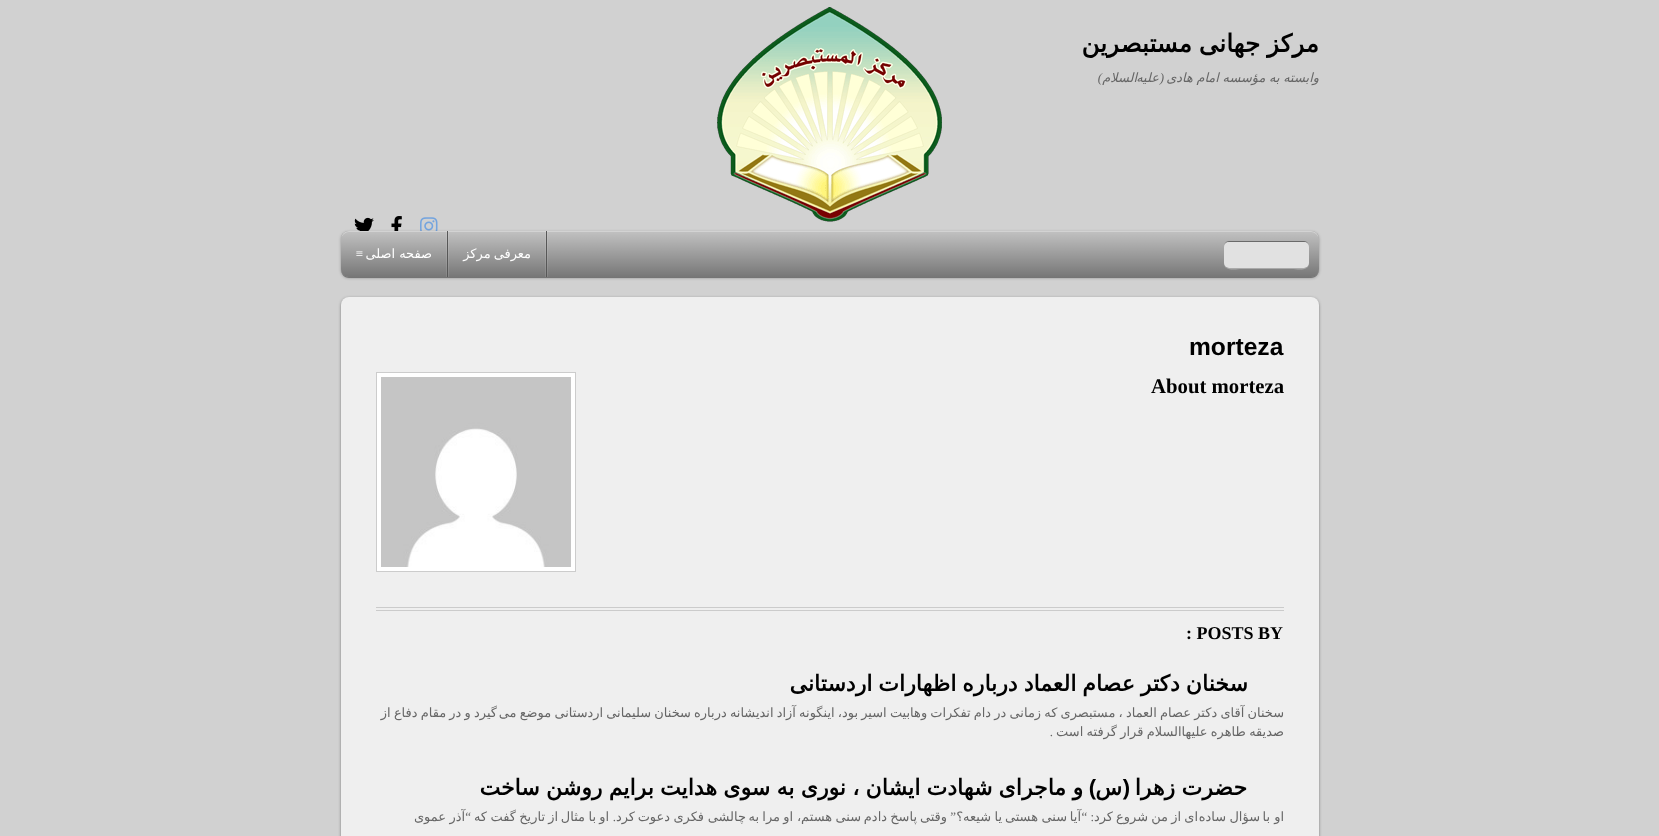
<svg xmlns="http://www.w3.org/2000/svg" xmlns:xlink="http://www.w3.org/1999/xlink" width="1659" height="836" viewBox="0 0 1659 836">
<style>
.cls-1{font:bold 24.6px DejaVu Sans;direction:rtl;fill:#000000}
.cls-2{font:italic 12.95px DejaVu Sans;direction:rtl;fill:#666666}
.cls-3{font:italic 12.95px Liberation Serif;direction:rtl;fill:#666666}
.cls-4{font:12.95px DejaVu Sans;direction:rtl;fill:#ffffff}
.cls-5{font:12.95px Liberation Serif;direction:rtl;fill:#ffffff}
.cls-6{font:bold 24.6px Liberation Sans;fill:#000000}
.cls-7{font:bold 20.75px Liberation Serif;fill:#000000}
.cls-8{font:bold 18px Liberation Serif;fill:#000000}
.cls-9{font:bold 22px DejaVu Sans;direction:rtl;fill:#000000}
.cls-10{font:12.95px DejaVu Sans;direction:rtl;fill:#666666}
.cls-11{font:12.95px Liberation Serif;direction:rtl;fill:#666666}
.cls-12{font:bold 22px Liberation Sans;direction:rtl;fill:#000000}
</style>
<defs>
<linearGradient id="g1" gradientUnits="userSpaceOnUse" x1="830" y1="231" x2="830" y2="277"><stop offset="0" stop-color="#ffffff" stop-opacity="0.55"/><stop offset="1" stop-color="#ffffff" stop-opacity="0"/></linearGradient>
<clipPath id="clip1"><rect x="376" y="666" width="908" height="91"/></clipPath>
</defs>
<rect width="100%" height="100%" fill="#d1d1d1"/>
<image xlink:href="image0.png" x="717" y="7" width="225" height="215"/>
<image xlink:href="image1.png" x="420" y="217" width="18" height="14"/>
<image xlink:href="image2.png" x="391" y="216" width="11" height="15"/>
<image xlink:href="image3.png" x="354" y="217" width="20" height="14"/>
<rect fill="#000000" fill-opacity="0.3" filter="blur(1.5px)" x="341" y="232" width="978" height="46" rx="8"/>
<path fill="#000000" fill-opacity="0.3" d="M341 269C341 274 344 278 349 278H1311C1316 278 1319 274 1319 269C1319 273 1315 277 1311 277H349C345 277 341 273 341 269Z"/>
<rect fill="#777777" x="341" y="231" width="978" height="46" rx="8"/>
<rect fill="url(#g1)" x="341" y="231" width="978" height="46" rx="8"/>
<path fill="#aaaaaa" d="M1224 263C1224 272 1236 269 1242 269H1292C1297 269 1309 272 1309 263C1309 266 1307 268 1304 268H1229C1226 268 1224 266 1224 263Z"/>
<path fill="#6a6a6a" d="M1229 241C1226 241 1224 244 1224 247C1224 244 1226 242 1229 242H1304C1307 242 1309 244 1309 247C1309 244 1307 241 1304 241Z"/>
<rect fill="#e1e1e1" x="1224" y="242" width="85" height="26" rx="5"/>
<path fill="#ffffff" fill-opacity="0.3" d="M349 232H1311C1315 232 1319 236 1319 240C1319 235 1316 231 1311 231H349C344 231 341 235 341 240C341 236 345 232 349 232Z"/>
<rect fill="#ffffff" fill-opacity="0.1" x="547" y="231" width="1" height="46"/>
<rect fill="#ffffff" fill-opacity="0.1" x="545" y="231" width="1" height="46"/>
<rect fill="#575757" x="546" y="231" width="1" height="46"/>
<rect fill="#ffffff" fill-opacity="0.1" x="448" y="231" width="1" height="46"/>
<rect fill="#ffffff" fill-opacity="0.1" x="446" y="231" width="1" height="46"/>
<rect fill="#575757" x="447" y="231" width="1" height="46"/>
<rect fill="#000000" fill-opacity="0.4" filter="blur(1.5px)" x="341" y="298" width="978" height="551" rx="8"/>
<rect fill="#efefef" x="341" y="297" width="978" height="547" rx="8"/>
<rect fill="#ffffff" stroke="#cccccc" x="376.5" y="372.5" width="199" height="199"/>
<image xlink:href="image4.png" x="381" y="377" width="190" height="190"/>
<rect fill="#cbcbcb" x="376" y="607" width="908" height="1"/>
<rect fill="#cbcbcb" x="376" y="610" width="908" height="1"/>
<text class="cls-1" x="1319" y="52" word-spacing="-1">مرکز جهانی مستبصرین</text>
<text class="cls-2" x="1319" y="82" word-spacing="-0.5">وابسته به مؤسسه امام هادی</text>
<text class="cls-3" x="1164" y="82">(</text>
<text class="cls-3" x="1102" y="82">)</text>
<text class="cls-2" x="1137" y="82">السلام</text>
<text class="cls-2" x="1159" y="82">علیه</text>
<text class="cls-4" x="531" y="258" word-spacing="-1">معرفی مرکز</text>
<text class="cls-4" x="432" y="258">صفحه اصلی</text>
<text class="cls-5" x="363" y="258">≡</text>
<text class="cls-6" x="1189" y="355">morteza</text>
<text class="cls-7" x="1151" y="393">About morteza</text>
<text class="cls-8" x="1186" y="639">: POSTS BY</text>
<text class="cls-9" x="1248" y="691" word-spacing="-1">سخنان دکتر عصام العماد درباره اظهارات اردستانی</text>
<text class="cls-10" x="497" y="717" word-spacing="-0.9">گیرد و در مقام دفاع از</text>
<g clip-path="url(#clip1)">
<text class="cls-10"><tspan x="1284" y="717" word-spacing="-0.9">سخنان آقای دکتر عصام العماد ، مستبصری که زمانی در دام تفکرات وهابیت اسیر بود، اینگونه آزاد اندیشانه درباره سخنان سلیمانی اردستانی موضع می</tspan><tspan x="1284" y="736" word-spacing="-0.75">صدیقه طاهره علیهاالسلام قرار گرفته است</tspan></text>
</g>
<text class="cls-11" x="1053" y="736">.</text>
<text class="cls-9" x="1247" y="795" word-spacing="-0.75">حضرت زهرا</text>
<text class="cls-12" x="1130" y="795">(</text>
<text class="cls-9" x="1122" y="795">س</text>
<text class="cls-9" x="1083" y="795" word-spacing="-0.75">و ماجرای شهادت ایشان ، نوری به سوی هدایت برایم روشن ساخت</text>
<text class="cls-12" x="1096" y="795">)</text>
<text class="cls-10" x="1284" y="821">او</text>
<text class="cls-10" x="1270" y="821">با</text>
<text class="cls-10" x="1260" y="821">سؤال</text>
<text class="cls-10" x="1226" y="821">ساده</text>
<text class="cls-10" x="1198" y="821">ای</text>
<text class="cls-10" x="1181" y="821">از</text>
<text class="cls-10" x="1168" y="821">من</text>
<text class="cls-10" x="1148" y="821">شروع</text>
<text class="cls-10" x="1113" y="821">کرد</text>
<text class="cls-11" x="1094" y="821">: “</text>
<text class="cls-10" x="1081" y="821">آیا</text>
<text class="cls-10" x="1067" y="821">سنی</text>
<text class="cls-10" x="1038" y="821">هستی</text>
<text class="cls-10" x="1002" y="821">یا</text>
<text class="cls-10" x="991" y="821">شیعه؟</text>
<text class="cls-11" x="956" y="821">”</text>
<text class="cls-10" x="947" y="821">وقتی</text>
<text class="cls-10" x="917" y="821">پاسخ</text>
<text class="cls-10" x="887" y="821">دادم</text>
<text class="cls-10" x="861" y="821">سنی</text>
<text class="cls-10" x="832" y="821">هستم،</text>
<text class="cls-10" x="793" y="821">او</text>
<text class="cls-10" x="780" y="821">مرا</text>
<text class="cls-10" x="759" y="821">به</text>
<text class="cls-10" x="746" y="821">چالشی</text>
<text class="cls-10" x="704" y="821">فکری</text>
<text class="cls-10" x="670" y="821">دعوت</text>
<text class="cls-10" x="635" y="821">کرد</text>
<text class="cls-11" x="616" y="821">.</text>
<text class="cls-10" x="609" y="821">او</text>
<text class="cls-10" x="596" y="821">با</text>
<text class="cls-10" x="585" y="821">مثال</text>
<text class="cls-10" x="558" y="821">از</text>
<text class="cls-10" x="545" y="821">تاریخ</text>
<text class="cls-10" x="516" y="821">گفت</text>
<text class="cls-10" x="487" y="821">که</text>
<text class="cls-10" x="465" y="821">آذر</text>
<text class="cls-11" x="471" y="821">“</text>
<text class="cls-10" x="446" y="821">عموی</text>
</svg>
